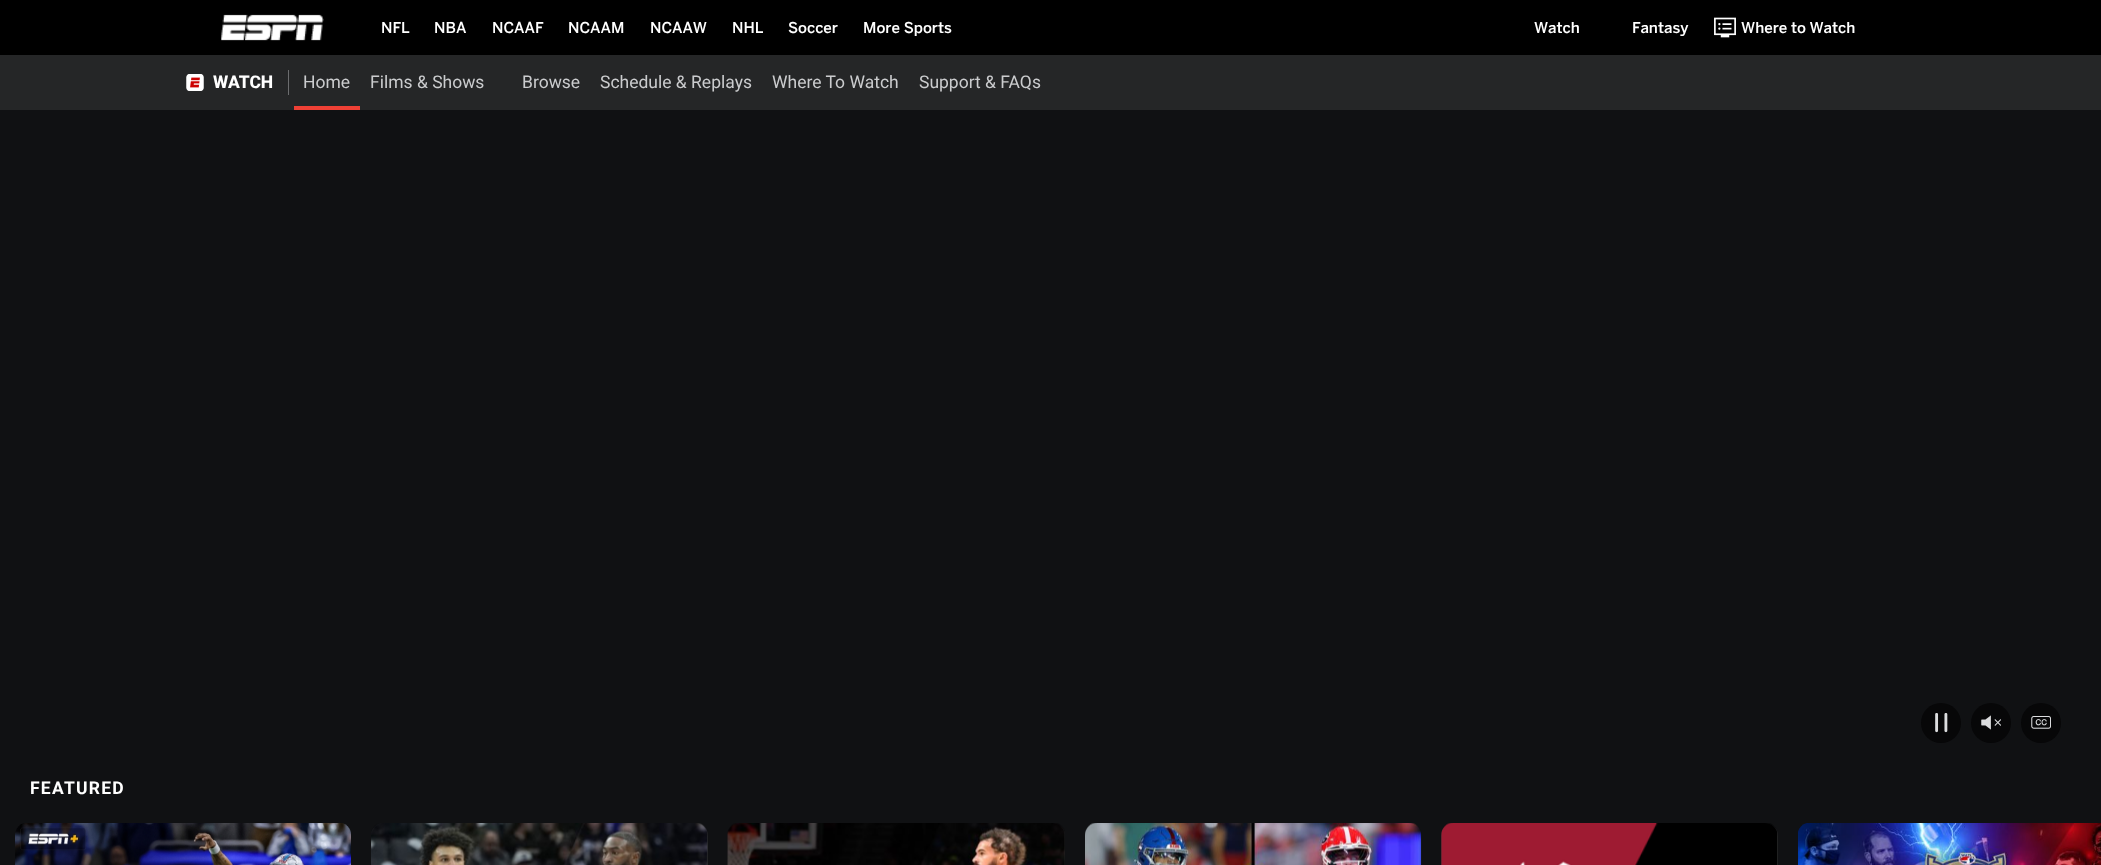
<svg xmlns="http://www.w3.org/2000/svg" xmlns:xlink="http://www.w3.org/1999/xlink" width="2101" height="865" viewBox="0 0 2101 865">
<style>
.cls-1{font:500 15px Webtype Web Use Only;fill:#ffffff}
.cls-2{font:800 17.5px Roboto;fill:#ffffff}
.cls-3{font:17.5px Roboto;fill:#cbccce}
.cls-4{font:bold 17.5px Roboto;letter-spacing:1.25px;fill:#ffffff}
</style>
<rect width="100%" height="100%" fill="#101113"/>
<rect fill="#000000" x="0" y="0" width="2101" height="55"/>
<image xlink:href="image0.png" x="221" y="14" width="103" height="27"/>
<image xlink:href="image1.png" x="1714" y="17" width="22" height="21"/>
<rect fill="#252627" x="0" y="55" width="2101" height="55"/>
<image xlink:href="image2.png" x="186" y="74" width="18" height="17"/>
<rect fill="#6c6d6f" x="288" y="70" width="1" height="25"/>
<rect fill="#ef4035" x="294" y="106" width="66" height="4"/>
<circle fill="#070708" cx="1941" cy="723" r="20"/>
<image xlink:href="image3.png" x="1935" y="713" width="13" height="20"/>
<circle fill="#070708" cx="1991" cy="723" r="20"/>
<image xlink:href="image4.png" x="1981" y="715" width="20" height="15"/>
<circle fill="#070708" cx="2041" cy="723" r="20"/>
<image xlink:href="image5.png" x="2031" y="716" width="20" height="13"/>
<image xlink:href="image6.png" x="15" y="823" width="336" height="42"/>
<rect fill="#2b2c2d" x="371" y="823" width="337" height="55" rx="13"/>
<image xlink:href="image7.png" x="371" y="823" width="337" height="42"/>
<rect fill="#2b2c2d" x="728" y="823" width="337" height="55" rx="13"/>
<image xlink:href="image8.png" x="727" y="823" width="338" height="42"/>
<image xlink:href="image9.png" x="1085" y="823" width="337" height="42"/>
<rect fill="#2b2c2d" x="1441" y="823" width="337" height="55" rx="13"/>
<image xlink:href="image10.png" x="1441" y="823" width="337" height="42"/>
<image xlink:href="image11.png" x="1798" y="823" width="303" height="42"/>
<text class="cls-1" x="381" y="33">NFL</text>
<text class="cls-1" x="434" y="33">NBA</text>
<text class="cls-1" x="492" y="33">NCAAF</text>
<text class="cls-1" x="568" y="33">NCAAM</text>
<text class="cls-1" x="650" y="33">NCAAW</text>
<text class="cls-1" x="732" y="33">NHL</text>
<text class="cls-1" x="788" y="33">Soccer</text>
<text class="cls-1" x="863" y="33">More Sports</text>
<text class="cls-1" x="1534" y="33">Watch</text>
<text class="cls-1" x="1632" y="33">Fantasy</text>
<text class="cls-1" x="1741" y="33">Where to Watch</text>
<text class="cls-2" x="213" y="88">WATCH</text>
<text class="cls-3" x="303" y="88">Home</text>
<text class="cls-3" x="370" y="88">Films &amp; Shows</text>
<text class="cls-3" x="522" y="88">Browse</text>
<text class="cls-3" x="600" y="88">Schedule &amp; Replays</text>
<text class="cls-3" x="772" y="88">Where To Watch</text>
<text class="cls-3" x="919" y="88">Support &amp; FAQs</text>
<text class="cls-4" x="30" y="794">FEATURED</text>
</svg>
